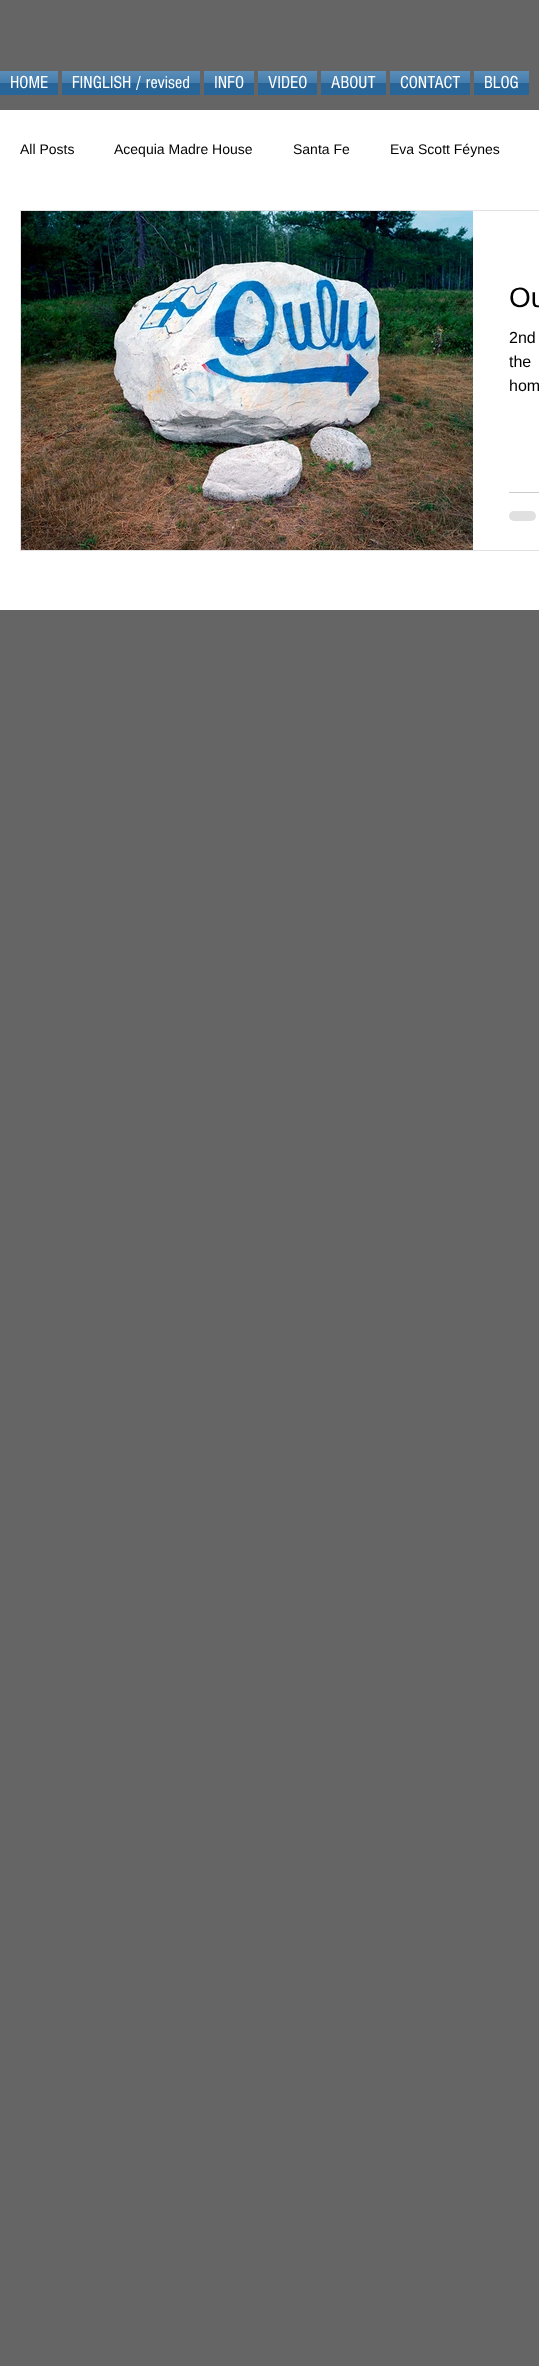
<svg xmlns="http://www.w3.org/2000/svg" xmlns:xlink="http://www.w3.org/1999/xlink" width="539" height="2366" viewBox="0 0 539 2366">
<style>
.cls-1{font:18px 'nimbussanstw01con';fill:#ffffff}
.cls-2{font:14px Liberation Sans;fill:#000000}
.cls-3{font:28px Liberation Sans;fill:#000000}
.cls-4{font:16px Liberation Sans;fill:#000000}
</style>
<rect width="100%" height="100%" fill="#656565"/>
<rect fill="#2b6ca3" x="0" y="71" width="58" height="24"/>
<image xlink:href="image0.png" x="0" y="71" width="58" height="24"/>
<rect fill="#2b6ca3" x="62" y="71" width="138" height="24"/>
<image xlink:href="image1.png" x="62" y="71" width="138" height="24"/>
<rect fill="#2b6ca3" x="204" y="71" width="50" height="24"/>
<image xlink:href="image2.png" x="204" y="71" width="50" height="24"/>
<rect fill="#2b6ca3" x="258" y="71" width="59" height="24"/>
<image xlink:href="image3.png" x="258" y="71" width="59" height="24"/>
<rect fill="#2b6ca3" x="321" y="71" width="65" height="24"/>
<image xlink:href="image4.png" x="321" y="71" width="65" height="24"/>
<rect fill="#2b6ca3" x="390" y="71" width="80" height="24"/>
<image xlink:href="image5.png" x="390" y="71" width="80" height="24"/>
<rect fill="#2b6ca3" x="474" y="71" width="55" height="24"/>
<image xlink:href="image6.png" x="474" y="71" width="55" height="24"/>
<rect fill="#ffffff" x="0" y="110" width="539" height="500"/>
<rect fill="none" stroke="#e2e2e2" x="20.5" y="210.5" width="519" height="340"/>
<image xlink:href="image7.png" x="21" y="211" width="452" height="339"/>
<rect fill="#cccccc" x="509" y="492" width="30" height="1"/>
<rect fill="#e0e0e0" x="509" y="511" width="27" height="10" rx="5"/>
<text class="cls-1" x="10" y="88">HOME</text>
<text class="cls-1" x="72" y="88">FINGLISH / revised</text>
<text class="cls-1" x="214" y="88">INFO</text>
<text class="cls-1" x="268" y="88">VIDEO</text>
<text class="cls-1" x="331" y="88">ABOUT</text>
<text class="cls-1" x="400" y="88">CONTACT</text>
<text class="cls-1" x="484" y="88">BLOG</text>
<text class="cls-2" x="20" y="154">All Posts</text>
<text class="cls-2" x="114" y="154">Acequia Madre House</text>
<text class="cls-2" x="293" y="154">Santa Fe</text>
<text class="cls-2" x="390" y="154">Eva Scott Féynes</text>
<text class="cls-3" x="509" y="307">Ou</text>
<text class="cls-4"><tspan x="509" y="343">2nd</tspan><tspan x="509" y="367">the</tspan><tspan x="509" y="391">hom</tspan></text>
</svg>
